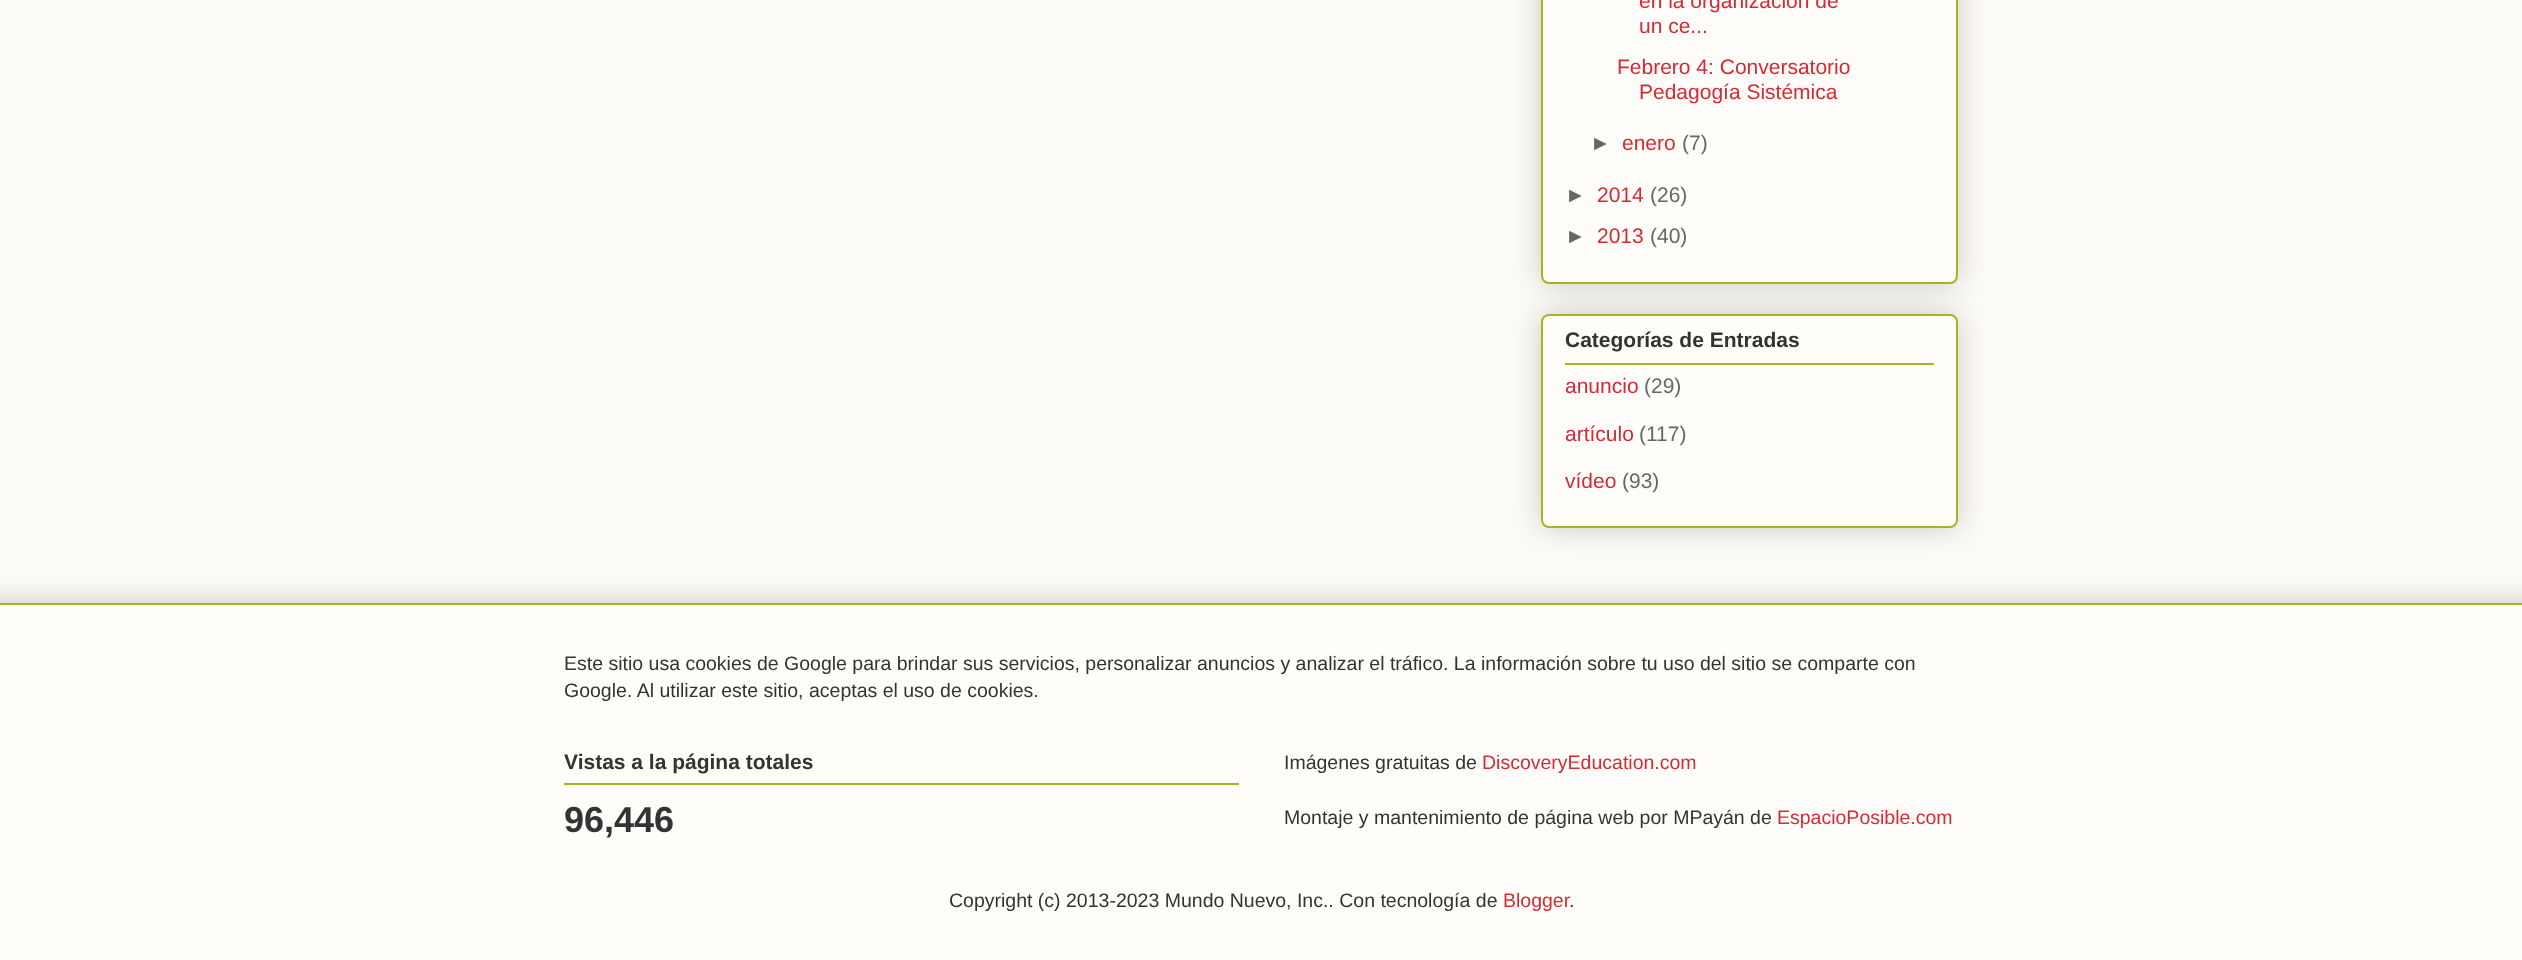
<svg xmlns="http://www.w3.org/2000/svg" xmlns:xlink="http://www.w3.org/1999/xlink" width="2522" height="960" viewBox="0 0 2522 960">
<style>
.cls-1{font:21px Liberation Sans;fill:#d52a33}
.cls-2{font:21px Liberation Sans;fill:#666666}
.cls-3{font:bold 21px Liberation Sans;fill:#333333}
.cls-4{font:19.5px Liberation Sans;fill:#333333}
.cls-5{font:bold 36px Liberation Sans;fill:#333333}
.cls-6{font:19.5px Liberation Sans;fill:#d52a33}
</style>
<rect width="100%" height="100%" fill="#fcfbf5"/>
<rect fill="#000000" fill-opacity="0.2" filter="blur(15px)" x="1541" y="-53" width="417" height="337" rx="8"/>
<rect fill="#fefdfa" stroke="#aab123" stroke-width="2" x="1542" y="-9" width="415" height="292" rx="7"/>
<rect fill="#000000" fill-opacity="0.2" filter="blur(15px)" x="1541" y="314" width="417" height="214" rx="8"/>
<rect fill="#fefdfa" stroke="#aab123" stroke-width="2" x="1542" y="315" width="415" height="212" rx="7"/>
<rect fill="#aab123" x="1565" y="363" width="369" height="2"/>
<rect fill="#000000" fill-opacity="0.2" filter="blur(15px)" x="-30" y="603" width="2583" height="357"/>
<rect fill="#fefdfa" x="0" y="605" width="2522" height="355"/>
<rect fill="#aab123" x="0" y="603" width="2522" height="2"/>
<rect fill="#aab123" x="564" y="783" width="675" height="2"/>
<text class="cls-1"><tspan x="1639" y="8">en la organización de</tspan><tspan x="1639" y="33">un ce...</tspan></text>
<text class="cls-1" x="1617" y="74">Febrero 4: Conversatorio</text>
<text class="cls-1" x="1639" y="99">Pedagogía Sistémica</text>
<text class="cls-2" x="1590" y="150">►</text>
<text class="cls-1" x="1622" y="150">enero</text>
<text class="cls-2" x="1682" y="150">(7)</text>
<text class="cls-2" x="1565" y="202">►</text>
<text class="cls-1" x="1597" y="202">2014</text>
<text class="cls-2" x="1650" y="202">(26)</text>
<text class="cls-2" x="1565" y="243">►</text>
<text class="cls-1" x="1597" y="243">2013</text>
<text class="cls-2" x="1650" y="243">(40)</text>
<text class="cls-3" x="1565" y="347">Categorías de Entradas</text>
<text class="cls-1" x="1565" y="393">anuncio</text>
<text class="cls-2" x="1644" y="393">(29)</text>
<text class="cls-1" x="1565" y="441">artículo</text>
<text class="cls-2" x="1639" y="441">(117)</text>
<text class="cls-1" x="1565" y="488">vídeo</text>
<text class="cls-2" x="1622" y="488">(93)</text>
<text class="cls-4"><tspan x="564" y="670">Este sitio usa cookies de Google para brindar sus servicios, personalizar anuncios y analizar el tráfico. La información sobre tu uso del sitio se comparte con</tspan><tspan x="564" y="697">Google. Al utilizar este sitio, aceptas el uso de cookies.</tspan></text>
<text class="cls-3" x="564" y="769">Vistas a la página totales</text>
<text class="cls-5" x="564" y="832">96,446</text>
<text class="cls-4" x="1284" y="769">Imágenes gratuitas de</text>
<text class="cls-6" x="1482" y="769">DiscoveryEducation.com</text>
<text class="cls-4" x="1284" y="824">Montaje y mantenimiento de página web por MPayán de</text>
<text class="cls-6" x="1777" y="824">EspacioPosible.com</text>
<text class="cls-4" x="949" y="907">Copyright (c) 2013-2023 Mundo Nuevo, Inc.. Con tecnología de</text>
<text class="cls-6" x="1503" y="907">Blogger</text>
<text class="cls-4" x="1569" y="907">.</text>
</svg>
